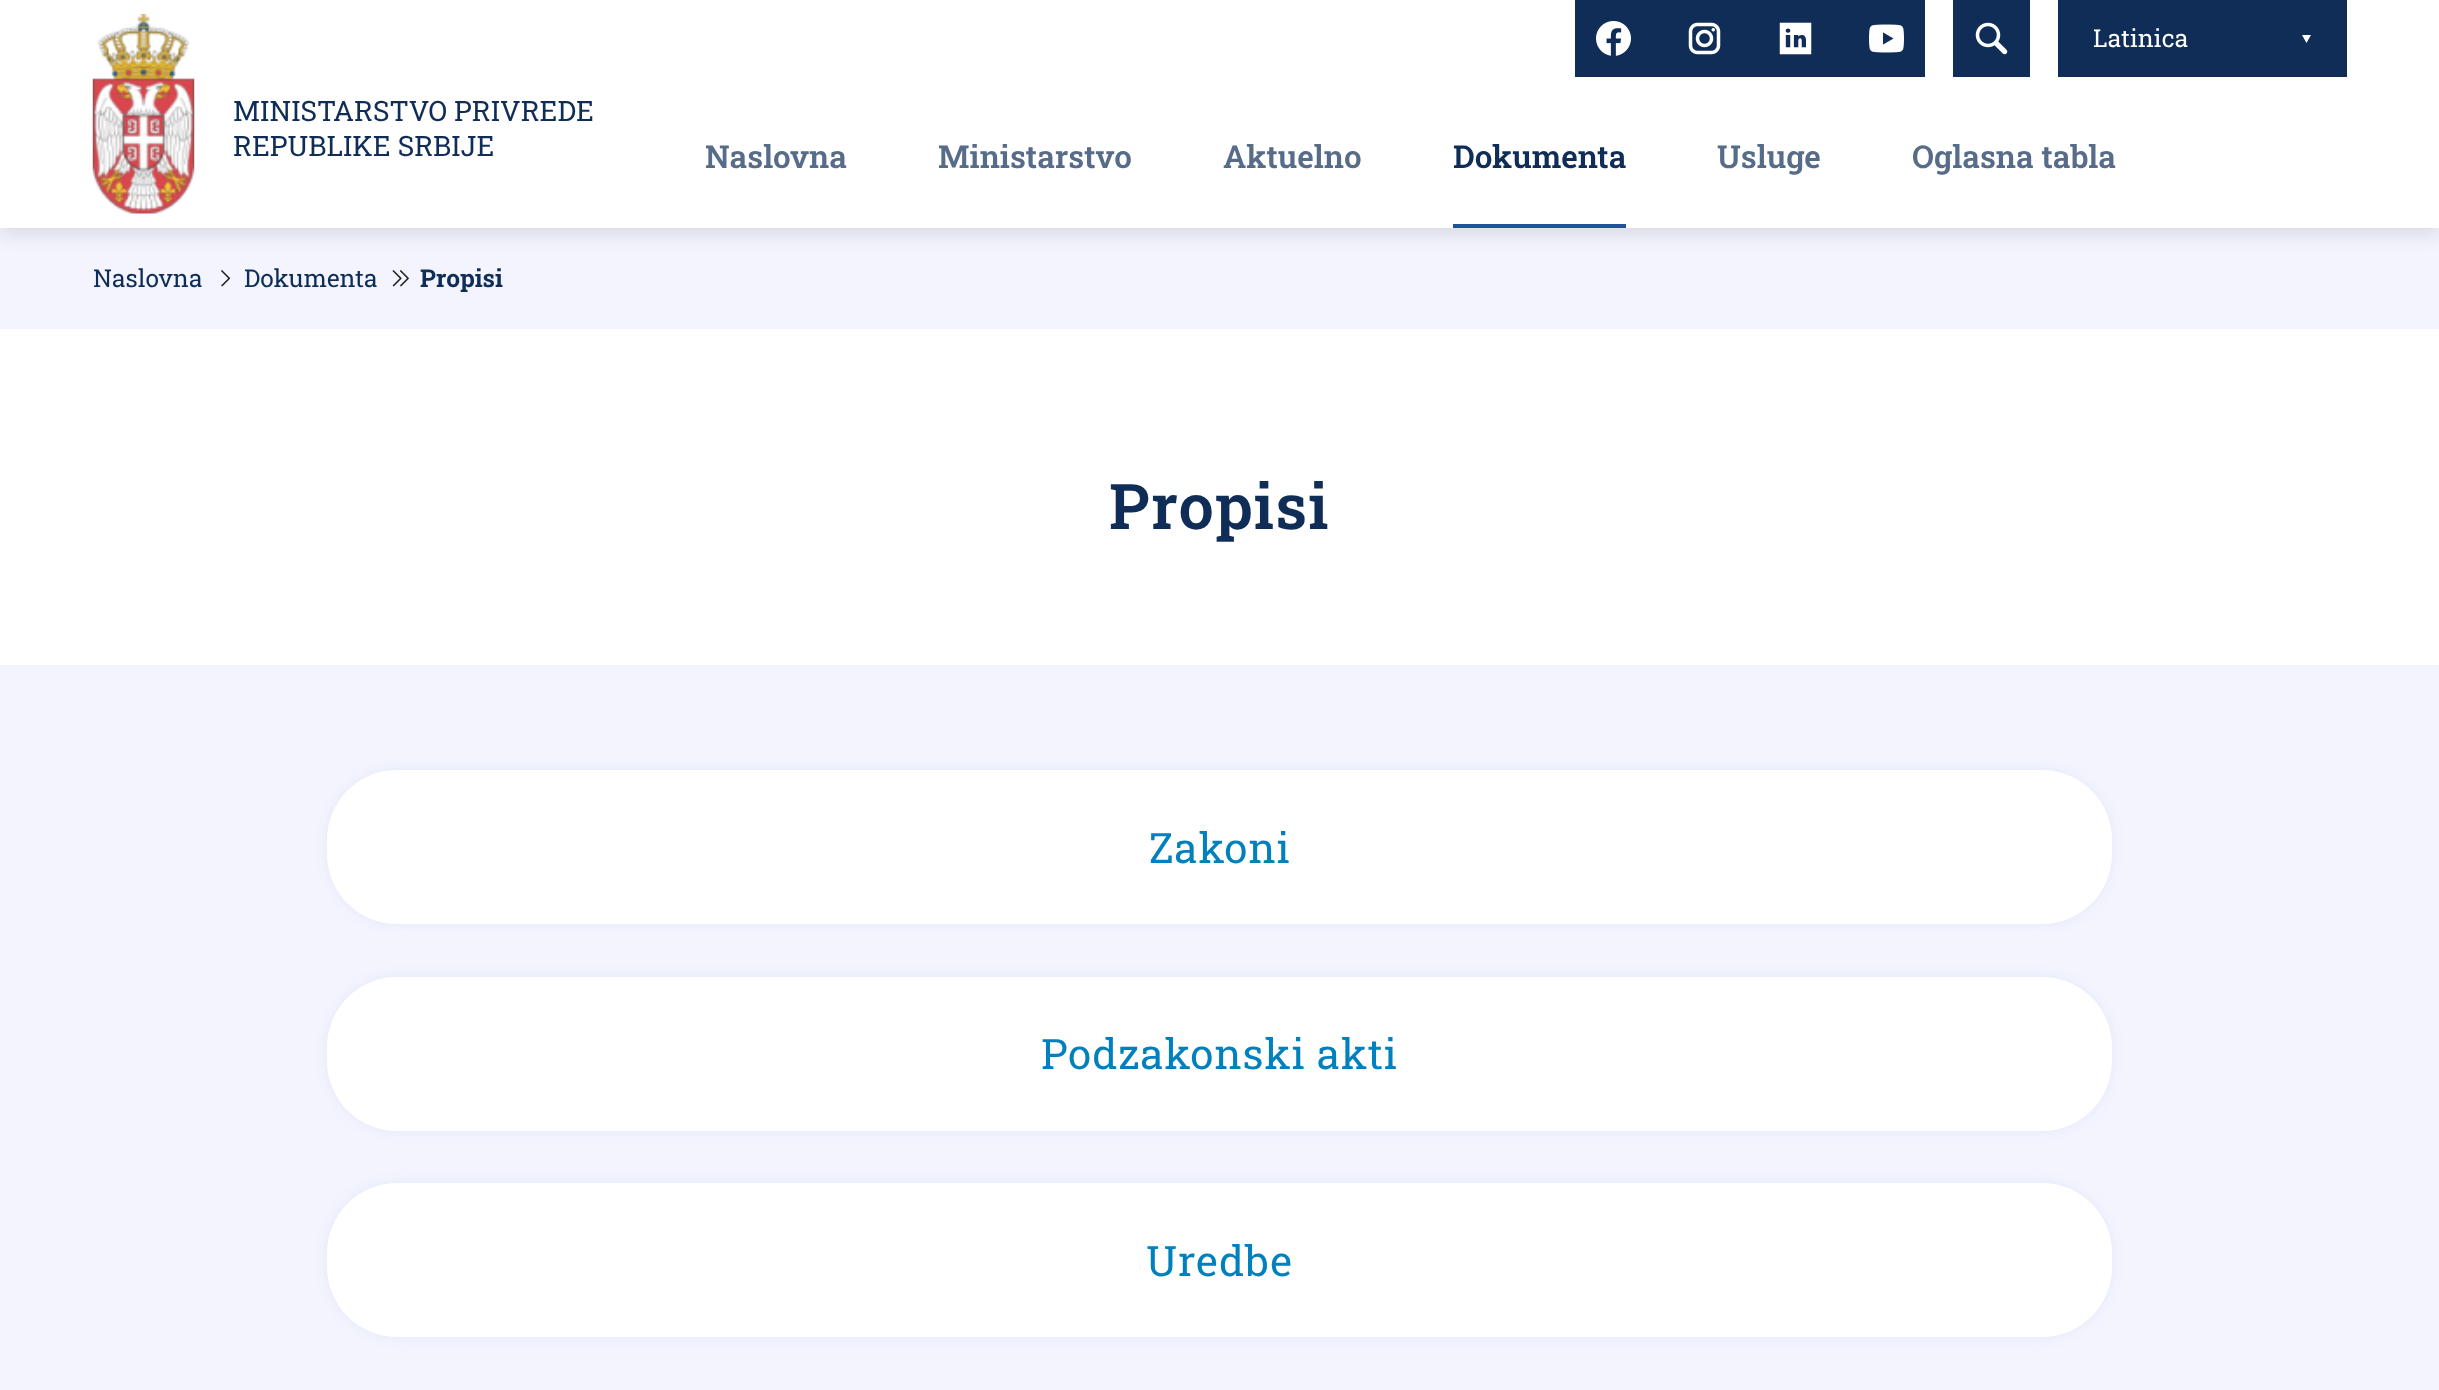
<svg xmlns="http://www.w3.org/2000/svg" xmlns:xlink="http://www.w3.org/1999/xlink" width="2439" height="1390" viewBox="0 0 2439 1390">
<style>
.cls-1{font:28px Roboto Slab;fill:#0f2d56}
.cls-2{font:24.5px Roboto Slab;fill:#ffffff}
.cls-3{font:600 31.5px Roboto Slab;fill:#576c89}
.cls-4{font:600 31.5px Roboto Slab;fill:#0f2d56}
.cls-5{font:24.5px Roboto Slab;fill:#0f2d56}
.cls-6{font:bold 24.5px Roboto Slab;fill:#0f2d56}
.cls-7{font:600 63px Roboto Slab;letter-spacing:1.25px;fill:#0f2d56}
.cls-8{font:42px Roboto Slab;letter-spacing:0.8px;fill:#0081be}
</style>
<defs>
<clipPath id="clip1"><path d="M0 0H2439V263H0ZM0 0H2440V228H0Z" clip-rule="evenodd"/></clipPath>
</defs>
<rect width="100%" height="100%" fill="#ffffff"/>
<rect fill="#f3f4fe" x="0" y="228" width="2439" height="101"/>
<g clip-path="url(#clip1)">
<rect fill="#000000" fill-opacity="0.1" filter="blur(9px)" x="0" y="7" width="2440" height="228"/>
</g>
<rect fill="#0f2d56" x="1953" y="0" width="77" height="77"/>
<image xlink:href="image0.png" x="1975" y="22" width="33" height="33"/>
<image xlink:href="image1.png" x="92" y="14" width="103" height="200"/>
<rect fill="#0f2d56" x="1575" y="0" width="350" height="77"/>
<image xlink:href="image2.png" x="1596" y="21" width="35" height="35"/>
<image xlink:href="image3.png" x="1688" y="22" width="33" height="33"/>
<image xlink:href="image4.png" x="1779" y="22" width="33" height="33"/>
<image xlink:href="image5.png" x="1869" y="24" width="35" height="29"/>
<rect fill="#0f2d56" x="2058" y="0" width="289" height="77"/>
<path fill="#ffffff" d="M2306.5 43L2302 35H2311Z"/>
<rect fill="#20519b" x="1453" y="224" width="173" height="4"/>
<image xlink:href="image6.png" x="221" y="270" width="10" height="17"/>
<image xlink:href="image7.png" x="392" y="270" width="17" height="17"/>
<rect fill="#f3f4fe" x="0" y="665" width="2439" height="725"/>
<rect fill="#0154a0" fill-opacity="0.06" filter="blur(7px)" x="327" y="770" width="1785" height="154" rx="70"/>
<rect fill="#ffffff" x="327" y="770" width="1785" height="154" rx="70"/>
<rect fill="#0154a0" fill-opacity="0.06" filter="blur(7px)" x="327" y="977" width="1785" height="154" rx="70"/>
<rect fill="#ffffff" x="327" y="977" width="1785" height="154" rx="70"/>
<rect fill="#0154a0" fill-opacity="0.06" filter="blur(7px)" x="327" y="1183" width="1785" height="154" rx="70"/>
<rect fill="#ffffff" x="327" y="1183" width="1785" height="154" rx="70"/>
<text class="cls-1"><tspan x="233" y="121">MINISTARSTVO PRIVREDE</tspan><tspan x="233" y="156">REPUBLIKE SRBIJE</tspan></text>
<text class="cls-2" x="2093" y="47">Latinica</text>
<text class="cls-3" x="705" y="168">Naslovna</text>
<text class="cls-3" x="938" y="168">Ministarstvo</text>
<text class="cls-3" x="1223" y="168">Aktuelno</text>
<text class="cls-4" x="1453" y="168">Dokumenta</text>
<text class="cls-3" x="1717" y="168">Usluge</text>
<text class="cls-3" x="1912" y="168">Oglasna tabla</text>
<text class="cls-5" x="93" y="287">Naslovna</text>
<text class="cls-5" x="244" y="287">Dokumenta</text>
<text class="cls-6" x="420" y="287">Propisi</text>
<text class="cls-7" x="1109" y="529">Propisi</text>
<text class="cls-8" x="1149" y="863">Zakoni</text>
<text class="cls-8" x="1041" y="1069">Podzakonski akti</text>
<text class="cls-8" x="1146" y="1276">Uredbe</text>
</svg>
